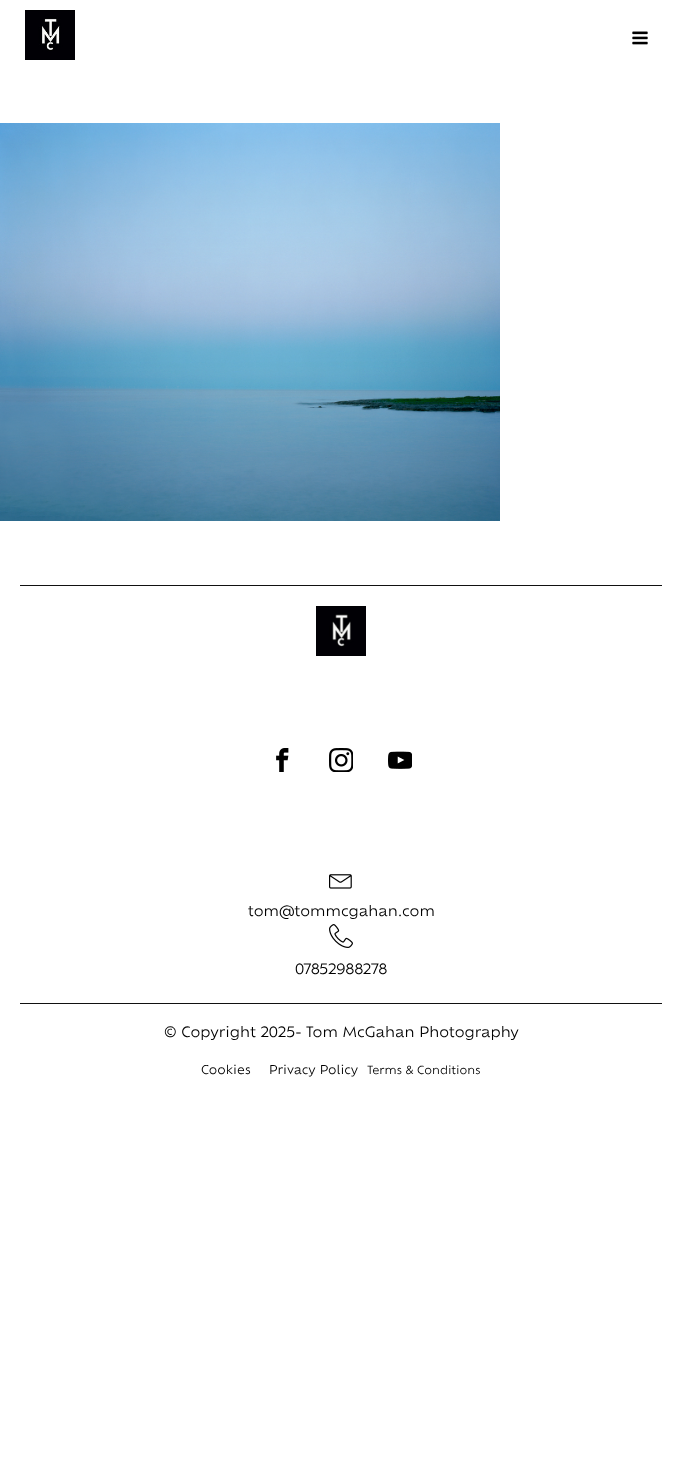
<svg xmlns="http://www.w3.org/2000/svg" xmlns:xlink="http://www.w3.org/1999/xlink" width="682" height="1461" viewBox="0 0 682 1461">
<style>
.cls-1{font:14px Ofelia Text;fill:#000000}
.cls-2{font:12px Ofelia Text;fill:#000000}
.cls-3{font:11px Ofelia Text;fill:#000000}
</style>
<rect width="100%" height="100%" fill="#ffffff"/>
<image xlink:href="image0.png" x="25" y="10" width="50" height="50"/>
<image xlink:href="image1.png" x="632" y="31" width="16" height="14"/>
<image xlink:href="image2.png" x="0" y="123" width="500" height="398"/>
<rect fill="#111111" x="20" y="585" width="642" height="1"/>
<rect fill="#111111" x="20" y="1003" width="642" height="1"/>
<image xlink:href="image3.png" x="316" y="606" width="50" height="50"/>
<image xlink:href="image4.png" x="276" y="748" width="13" height="24"/>
<image xlink:href="image5.png" x="329" y="748" width="24" height="24"/>
<image xlink:href="image6.png" x="388" y="751" width="24" height="18"/>
<image xlink:href="image7.png" x="329" y="874" width="23" height="15"/>
<image xlink:href="image8.png" x="329" y="924" width="24" height="24"/>
<text class="cls-1" x="248" y="916">tom@tommcgahan.com</text>
<text class="cls-1" x="295" y="974">07852988278</text>
<text class="cls-1" x="164" y="1037">© Copyright 2025- Tom McGahan Photography</text>
<text class="cls-2" x="201" y="1074">Cookies</text>
<text class="cls-2" x="269" y="1074">Privacy Policy</text>
<text class="cls-3" x="367" y="1074">Terms &amp; Conditions</text>
</svg>
